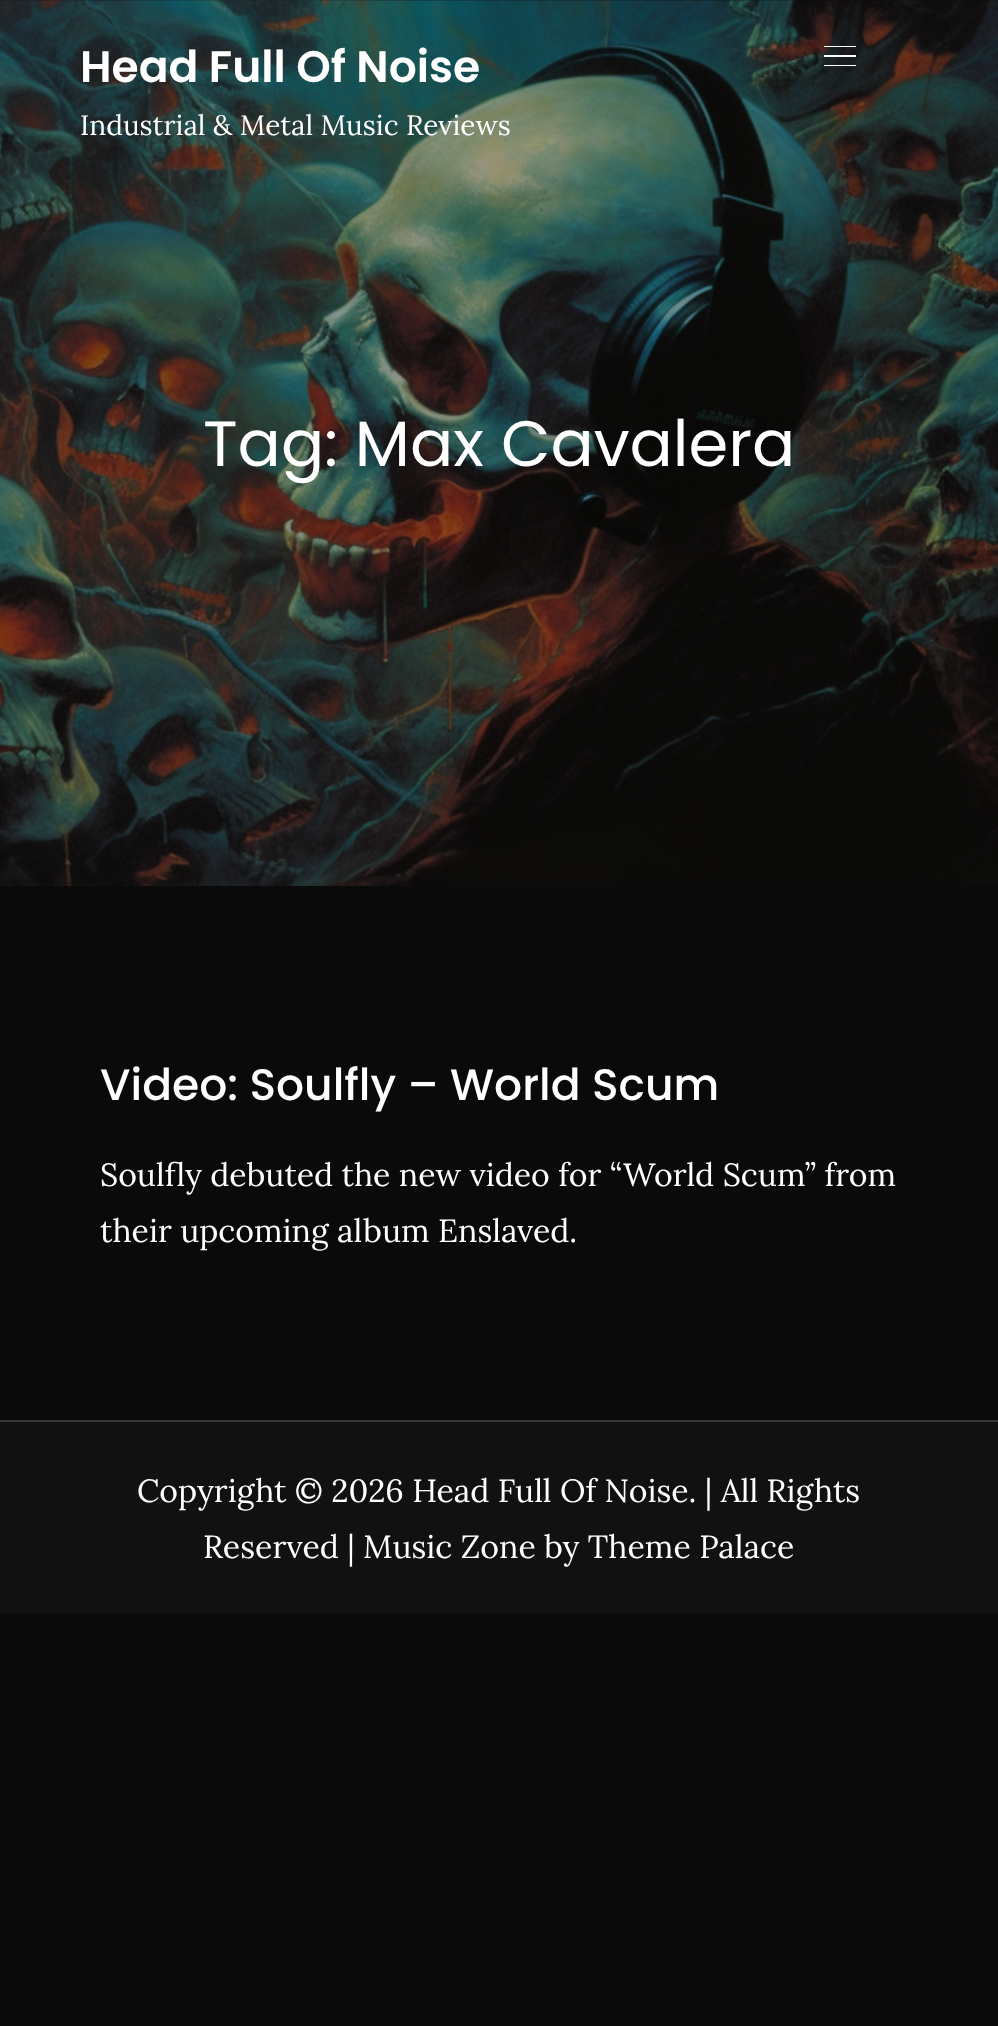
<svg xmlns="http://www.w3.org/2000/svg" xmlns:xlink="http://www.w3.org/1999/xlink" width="998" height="2026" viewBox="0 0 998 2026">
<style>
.cls-1{font:600 44px Poppins;fill:#ffffff}
.cls-2{font:28px Lora;fill:#ffffff}
.cls-3{font:64px Poppins;fill:#ffffff}
.cls-4{font:500 44px Poppins;fill:#ffffff}
.cls-5{font:32px Lora;fill:#ffffff}
</style>
<rect width="100%" height="100%" fill="#0a0a0a"/>
<image xlink:href="image0.png" x="0" y="0" width="998" height="886"/>
<rect fill="#ffffff" x="824" y="46" width="32" height="1"/>
<rect fill="#ffffff" x="824" y="55" width="32" height="2"/>
<rect fill="#ffffff" x="824" y="65" width="32" height="1"/>
<rect fill="#111111" x="0" y="1422" width="998" height="192"/>
<rect fill="#353535" x="0" y="1420" width="998" height="2"/>
<text class="cls-1" x="80" y="82">Head Full Of Noise</text>
<text class="cls-2" x="80" y="135">Industrial &amp; Metal Music Reviews</text>
<text class="cls-3" x="203" y="466">Tag: Max Cavalera</text>
<text class="cls-4" x="100" y="1100">Video: Soulfly – World Scum</text>
<text class="cls-5"><tspan x="100" y="1186">Soulfly debuted the new video for “World Scum” from</tspan><tspan x="100" y="1242">their upcoming album Enslaved.</tspan></text>
<text class="cls-5" x="137" y="1502">Copyright © 2026 Head Full Of Noise. | All Rights</text>
<text class="cls-5" x="203" y="1558">Reserved | Music Zone by Theme Palace</text>
</svg>
